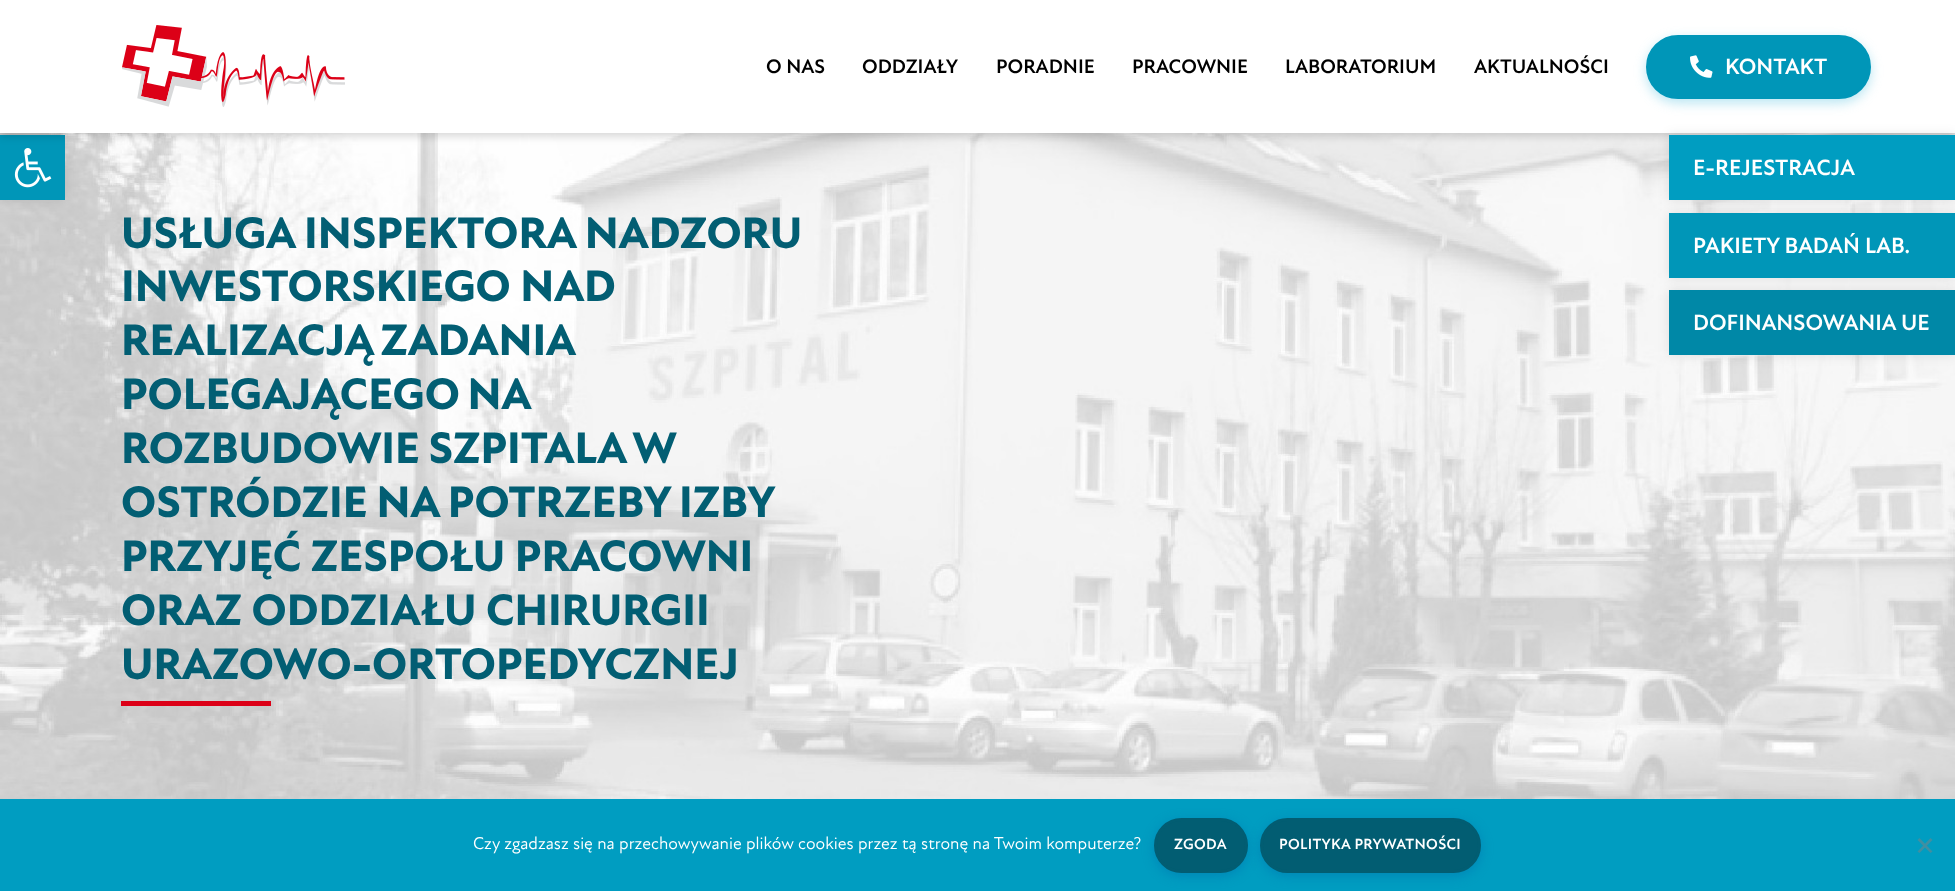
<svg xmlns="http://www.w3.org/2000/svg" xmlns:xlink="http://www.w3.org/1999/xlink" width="1955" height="891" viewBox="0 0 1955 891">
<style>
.cls-1{font:bold 20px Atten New;fill:#000000}
.cls-2{font:bold 22.5px Atten New;fill:#ffffff}
.cls-3{font:800 45px Atten New;fill:#025e73}
.cls-4{font:17.5px Atten New;fill:#ffffff}
.cls-5{font:bold 15px Atten New;letter-spacing:0.3px;fill:#ffffff}
</style>
<rect width="100%" height="100%" fill="#ffffff"/>
<image xlink:href="image3.png" x="0" y="133" width="1955" height="666"/>
<rect fill="#000000" fill-opacity="0.1" filter="blur(6px)" x="0" y="135" width="65" height="65"/>
<rect fill="#0096b8" x="0" y="135" width="65" height="65"/>
<image xlink:href="image0.png" x="14" y="148" width="38" height="40"/>
<rect fill="#000000" fill-opacity="0.16" filter="blur(4px)" x="0" y="4" width="1955" height="132"/>
<rect fill="#ffffff" x="0" y="0" width="1955" height="133"/>
<image xlink:href="image1.png" x="122" y="25" width="223" height="82"/>
<rect fill="#4dbede" fill-opacity="0.4" filter="blur(6px)" x="1646" y="39" width="225" height="64" rx="32"/>
<rect fill="#0096b8" stroke="#0096b8" stroke-width="3" x="1647.5" y="36.5" width="222" height="61" rx="30.5"/>
<image xlink:href="image2.png" x="1690" y="55" width="23" height="23"/>
<rect fill="#dc0017" x="121" y="701" width="150" height="5"/>
<rect fill="#000000" fill-opacity="0.1" filter="blur(6px)" x="1669" y="135" width="286" height="65"/>
<rect fill="#009dc1" x="1669" y="135" width="286" height="65"/>
<rect fill="#000000" fill-opacity="0.1" filter="blur(6px)" x="1669" y="213" width="286" height="65"/>
<rect fill="#0096b8" x="1669" y="213" width="286" height="65"/>
<rect fill="#000000" fill-opacity="0.1" filter="blur(6px)" x="1669" y="290" width="286" height="65"/>
<rect fill="#0088a7" x="1669" y="290" width="286" height="65"/>
<rect fill="#009dc1" x="0" y="799" width="1955" height="92"/>
<rect fill="#016daa" fill-opacity="0.47" filter="blur(6px)" x="1154" y="821" width="94" height="55" rx="27.5"/>
<rect fill="#025d72" stroke="#025d72" stroke-width="3" x="1155.5" y="819.5" width="91" height="52" rx="26"/>
<rect fill="#016daa" fill-opacity="0.47" filter="blur(6px)" x="1260" y="821" width="221" height="55" rx="27.5"/>
<rect fill="#025d72" stroke="#025d72" stroke-width="3" x="1261.5" y="819.5" width="218" height="52" rx="26"/>
<path fill="#408fa1" d="M1930.5 838L1932.5 840L1919.5 853L1917.5 851.5Z"/>
<path fill="#408fa1" d="M1917.5 840L1919.5 838L1932.5 851.5L1930.5 853Z"/>
<text class="cls-1" x="766" y="73">O NAS</text>
<text class="cls-1" x="862" y="73">ODDZIAŁY</text>
<text class="cls-1" x="996" y="73">PORADNIE</text>
<text class="cls-1" x="1132" y="73">PRACOWNIE</text>
<text class="cls-1" x="1285" y="73">LABORATORIUM</text>
<text class="cls-1" x="1474" y="73">AKTUALNOŚCI</text>
<text class="cls-2" x="1725" y="74">KONTAKT</text>
<text class="cls-3"><tspan x="121" y="248">USŁUGA INSPEKTORA NADZORU</tspan><tspan x="121" y="301">INWESTORSKIEGO NAD</tspan><tspan x="121" y="355" word-spacing="-2">REALIZACJĄ ZADANIA</tspan><tspan x="121" y="409" word-spacing="-2">POLEGAJĄCEGO NA</tspan><tspan x="121" y="463" word-spacing="-1">ROZBUDOWIE SZPITALA W</tspan><tspan x="121" y="517" word-spacing="-0.5">OSTRÓDZIE NA POTRZEBY IZBY</tspan><tspan x="121" y="571">PRZYJĘĆ ZESPOŁU PRACOWNI</tspan><tspan x="121" y="625">ORAZ ODDZIAŁU CHIRURGII</tspan><tspan x="121" y="679">URAZOWO-ORTOPEDYCZNEJ</tspan></text>
<text class="cls-2" x="1693" y="175">E-REJESTRACJA</text>
<text class="cls-2" x="1693" y="253">PAKIETY BADAŃ LAB.</text>
<text class="cls-2" x="1693" y="330">DOFINANSOWANIA UE</text>
<text class="cls-4" x="473" y="849">Czy zgadzasz się na przechowywanie plików cookies przez tą stronę na Twoim komputerze?</text>
<text class="cls-5" x="1174" y="849">ZGODA</text>
<text class="cls-5" x="1279" y="849">POLITYKA PRYWATNOŚCI</text>
</svg>
